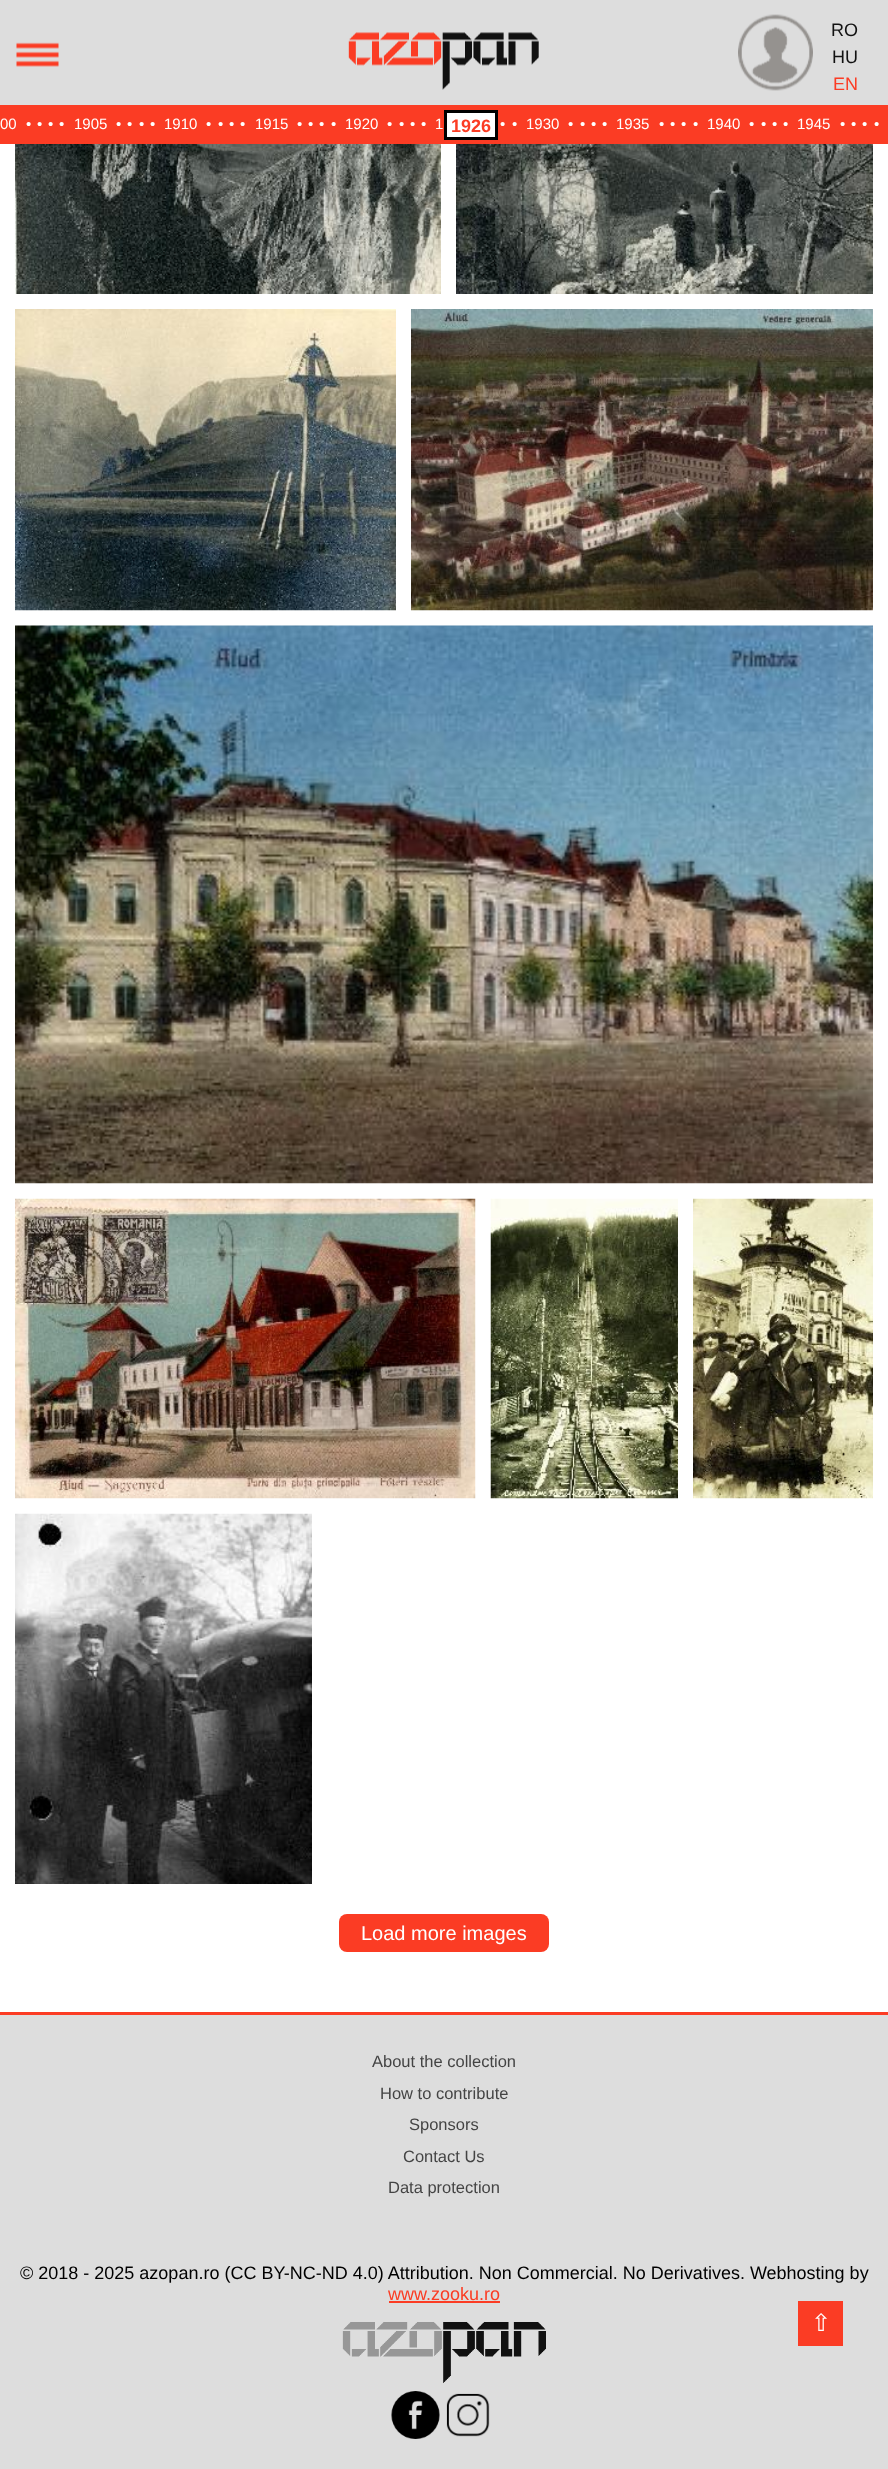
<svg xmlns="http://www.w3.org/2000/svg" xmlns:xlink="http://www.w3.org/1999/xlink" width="888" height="2469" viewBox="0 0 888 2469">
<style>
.cls-1{font:18px Liberation Sans;fill:#111111}
.cls-2{font:18px Liberation Sans;fill:#fb3c24}
.cls-3{font:15px Liberation Sans;fill:#ffffff}
.cls-4{font:bold 18px Liberation Sans;fill:#fb3c24}
.cls-5{font:20px Liberation Sans;fill:#ffffff}
.cls-6{font:16.5px Liberation Sans;fill:#444444}
.cls-7{font:18px Liberation Sans;fill:#000000}
.cls-8{font:24px DejaVu Sans;fill:#ffffff}
</style>
<rect width="100%" height="100%" fill="#ffffff"/>
<rect fill="#dddddd" x="0" y="0" width="888" height="105"/>
<rect fill="#fb3c24" x="0" y="105" width="888" height="39"/>
<image xlink:href="image0.png" x="16" y="42" width="43" height="25"/>
<image xlink:href="image1.png" x="348" y="32" width="191" height="58"/>
<image xlink:href="image2.png" x="738" y="14" width="75" height="77"/>
<rect fill="#ffffff" stroke="#000000" stroke-width="3" x="445.5" y="111.5" width="51" height="27"/>
<image xlink:href="image3.png" x="15" y="144" width="426" height="150"/>
<image xlink:href="image4.png" x="456" y="144" width="417" height="150"/>
<image xlink:href="image5.png" x="15" y="309" width="381" height="302"/>
<image xlink:href="image6.png" x="411" y="309" width="462" height="302"/>
<image xlink:href="image7.png" x="15" y="625" width="858" height="559"/>
<image xlink:href="image8.png" x="15" y="1198" width="461" height="301"/>
<image xlink:href="image9.png" x="490" y="1198" width="188" height="301"/>
<image xlink:href="image10.png" x="693" y="1198" width="180" height="301"/>
<image xlink:href="image11.png" x="15" y="1513" width="297" height="371"/>
<rect fill="#fb3c24" x="339" y="1914" width="210" height="38" rx="8"/>
<rect fill="#dddddd" x="0" y="2015" width="888" height="454"/>
<rect fill="#fb3c24" x="0" y="2012" width="888" height="3"/>
<rect fill="#fb3c24" x="389" y="2301" width="111" height="2"/>
<image xlink:href="image12.png" x="342" y="2322" width="204" height="61"/>
<image xlink:href="image13.png" x="391" y="2391" width="49" height="48"/>
<image xlink:href="image14.png" x="446" y="2393" width="44" height="44"/>
<rect fill="#fb3c24" x="798" y="2301" width="45" height="45"/>
<text class="cls-1" x="831" y="36">RO</text>
<text class="cls-1" x="832" y="63">HU</text>
<text class="cls-2" x="833" y="90">EN</text>
<text class="cls-3" x="0" y="129">00</text>
<text class="cls-3" x="26" y="129">•</text>
<text class="cls-3" x="37" y="129">•</text>
<text class="cls-3" x="48" y="129">•</text>
<text class="cls-3" x="59" y="129">•</text>
<text class="cls-3" x="74" y="129">1905</text>
<text class="cls-3" x="116" y="129">•</text>
<text class="cls-3" x="127" y="129">•</text>
<text class="cls-3" x="139" y="129">•</text>
<text class="cls-3" x="150" y="129">•</text>
<text class="cls-3" x="164" y="129">1910</text>
<text class="cls-3" x="206" y="129">•</text>
<text class="cls-3" x="218" y="129">•</text>
<text class="cls-3" x="229" y="129">•</text>
<text class="cls-3" x="240" y="129">•</text>
<text class="cls-3" x="255" y="129">1915</text>
<text class="cls-3" x="297" y="129">•</text>
<text class="cls-3" x="308" y="129">•</text>
<text class="cls-3" x="319" y="129">•</text>
<text class="cls-3" x="331" y="129">•</text>
<text class="cls-3" x="345" y="129">1920</text>
<text class="cls-3" x="387" y="129">•</text>
<text class="cls-3" x="399" y="129">•</text>
<text class="cls-3" x="410" y="129">•</text>
<text class="cls-3" x="421" y="129">•</text>
<text class="cls-3" x="435" y="129">1</text>
<text class="cls-3" x="500" y="129">•</text>
<text class="cls-3" x="512" y="129">•</text>
<text class="cls-3" x="526" y="129">1930</text>
<text class="cls-3" x="568" y="129">•</text>
<text class="cls-3" x="580" y="129">•</text>
<text class="cls-3" x="591" y="129">•</text>
<text class="cls-3" x="602" y="129">•</text>
<text class="cls-3" x="616" y="129">1935</text>
<text class="cls-3" x="659" y="129">•</text>
<text class="cls-3" x="670" y="129">•</text>
<text class="cls-3" x="681" y="129">•</text>
<text class="cls-3" x="693" y="129">•</text>
<text class="cls-3" x="707" y="129">1940</text>
<text class="cls-3" x="749" y="129">•</text>
<text class="cls-3" x="761" y="129">•</text>
<text class="cls-3" x="772" y="129">•</text>
<text class="cls-3" x="783" y="129">•</text>
<text class="cls-3" x="797" y="129">1945</text>
<text class="cls-3" x="840" y="129">•</text>
<text class="cls-3" x="851" y="129">•</text>
<text class="cls-3" x="862" y="129">•</text>
<text class="cls-3" x="874" y="129">•</text>
<text class="cls-4" x="451" y="132">1926</text>
<text class="cls-5" x="361" y="1940">Load more images</text>
<text class="cls-6" x="372" y="2067">About the collection</text>
<text class="cls-6" x="380" y="2099">How to contribute</text>
<text class="cls-6" x="409" y="2130">Sponsors</text>
<text class="cls-6" x="403" y="2162">Contact Us</text>
<text class="cls-6" x="388" y="2193">Data protection</text>
<text class="cls-7" x="20" y="2279">© 2018 - 2025 azopan.ro (CC BY-NC-ND 4.0) Attribution. Non Commercial. No Derivatives. Webhosting by</text>
<text class="cls-2" x="388" y="2300">www.zooku.ro</text>
<text class="cls-8" x="811" y="2331">⇧</text>
</svg>
